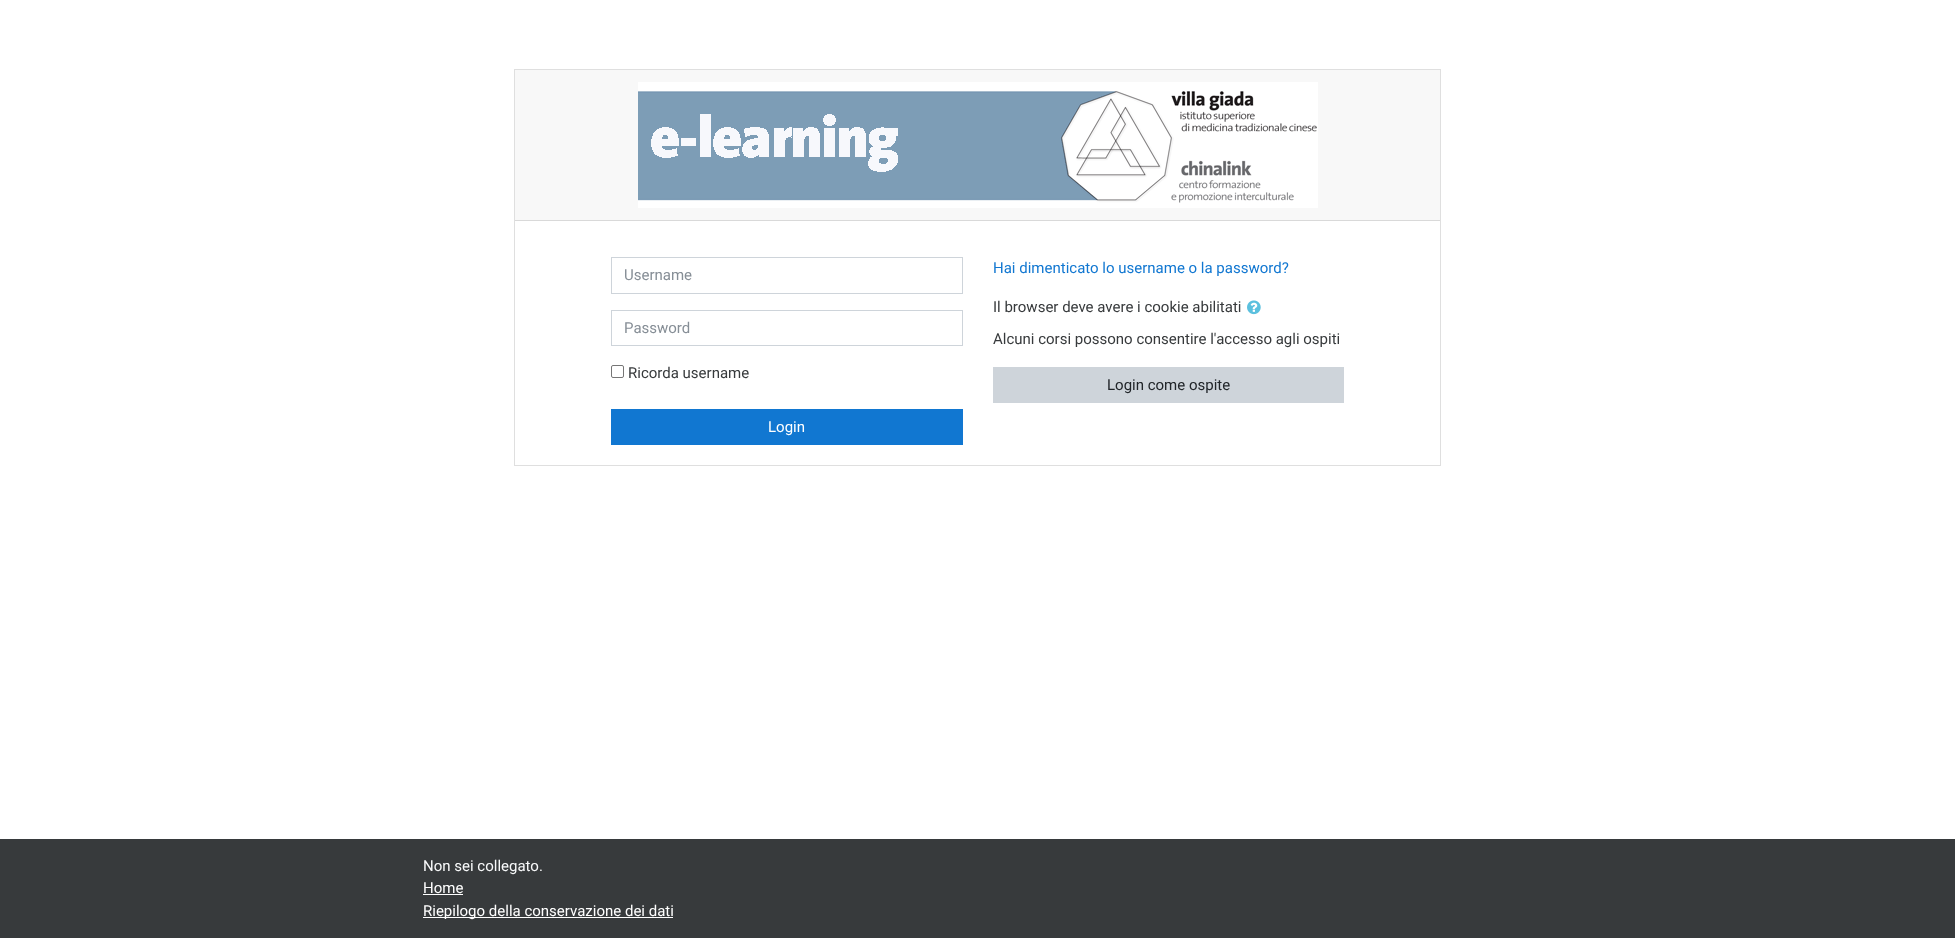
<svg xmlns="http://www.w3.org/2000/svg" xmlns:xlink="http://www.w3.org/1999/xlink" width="1955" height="938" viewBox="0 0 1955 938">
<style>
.cls-1{font:15px Roboto;fill:#868e96}
.cls-2{font:15px Roboto;fill:#373a3c}
.cls-3{font:15px Roboto;fill:#ffffff}
.cls-4{font:15px Roboto;fill:#1177d1}
.cls-5{font:15px Roboto;fill:#212529}
.cls-6{font:15px Roboto;fill:#f8f9fa}
</style>
<rect width="100%" height="100%" fill="#ffffff"/>
<rect fill="none" stroke="#dfdfdf" x="514.5" y="69.5" width="926" height="396"/>
<rect fill="#f8f8f8" x="515" y="70" width="925" height="150"/>
<rect fill="#d9d9d9" x="515" y="220" width="925" height="1"/>
<image xlink:href="image0.png" x="638" y="82" width="680" height="126"/>
<rect fill="none" stroke="#ced4da" x="611.5" y="257.5" width="351" height="36"/>
<rect fill="none" stroke="#ced4da" x="611.5" y="310.5" width="351" height="35"/>
<rect fill="none" stroke="#767676" x="611.5" y="365.5" width="12" height="12" rx="1.5"/>
<rect fill="#1177d1" x="611" y="409" width="352" height="36"/>
<image xlink:href="image1.png" x="1247" y="300" width="14" height="15"/>
<rect fill="#ced4da" x="993" y="367" width="351" height="36"/>
<rect fill="#373a3c" x="0" y="839" width="1955" height="99"/>
<rect fill="#ffffff" x="423" y="894" width="40" height="1"/>
<rect fill="#ffffff" x="423" y="917" width="250" height="1"/>
<text class="cls-1" x="624" y="280">Username</text>
<text class="cls-1" x="624" y="333">Password</text>
<text class="cls-2" x="628" y="378">Ricorda username</text>
<text class="cls-3" x="768" y="432">Login</text>
<text class="cls-4" x="993" y="273">Hai dimenticato lo username o la password?</text>
<text class="cls-2" x="993" y="312">Il browser deve avere i cookie abilitati</text>
<text class="cls-2" x="993" y="344">Alcuni corsi possono consentire l'accesso agli ospiti</text>
<text class="cls-5" x="1107" y="390">Login come ospite</text>
<text class="cls-6" x="423" y="871">Non sei collegato.</text>
<text class="cls-3"><tspan x="423" y="893">Home</tspan><tspan x="423" y="916">Riepilogo della conservazione dei dati</tspan></text>
</svg>
